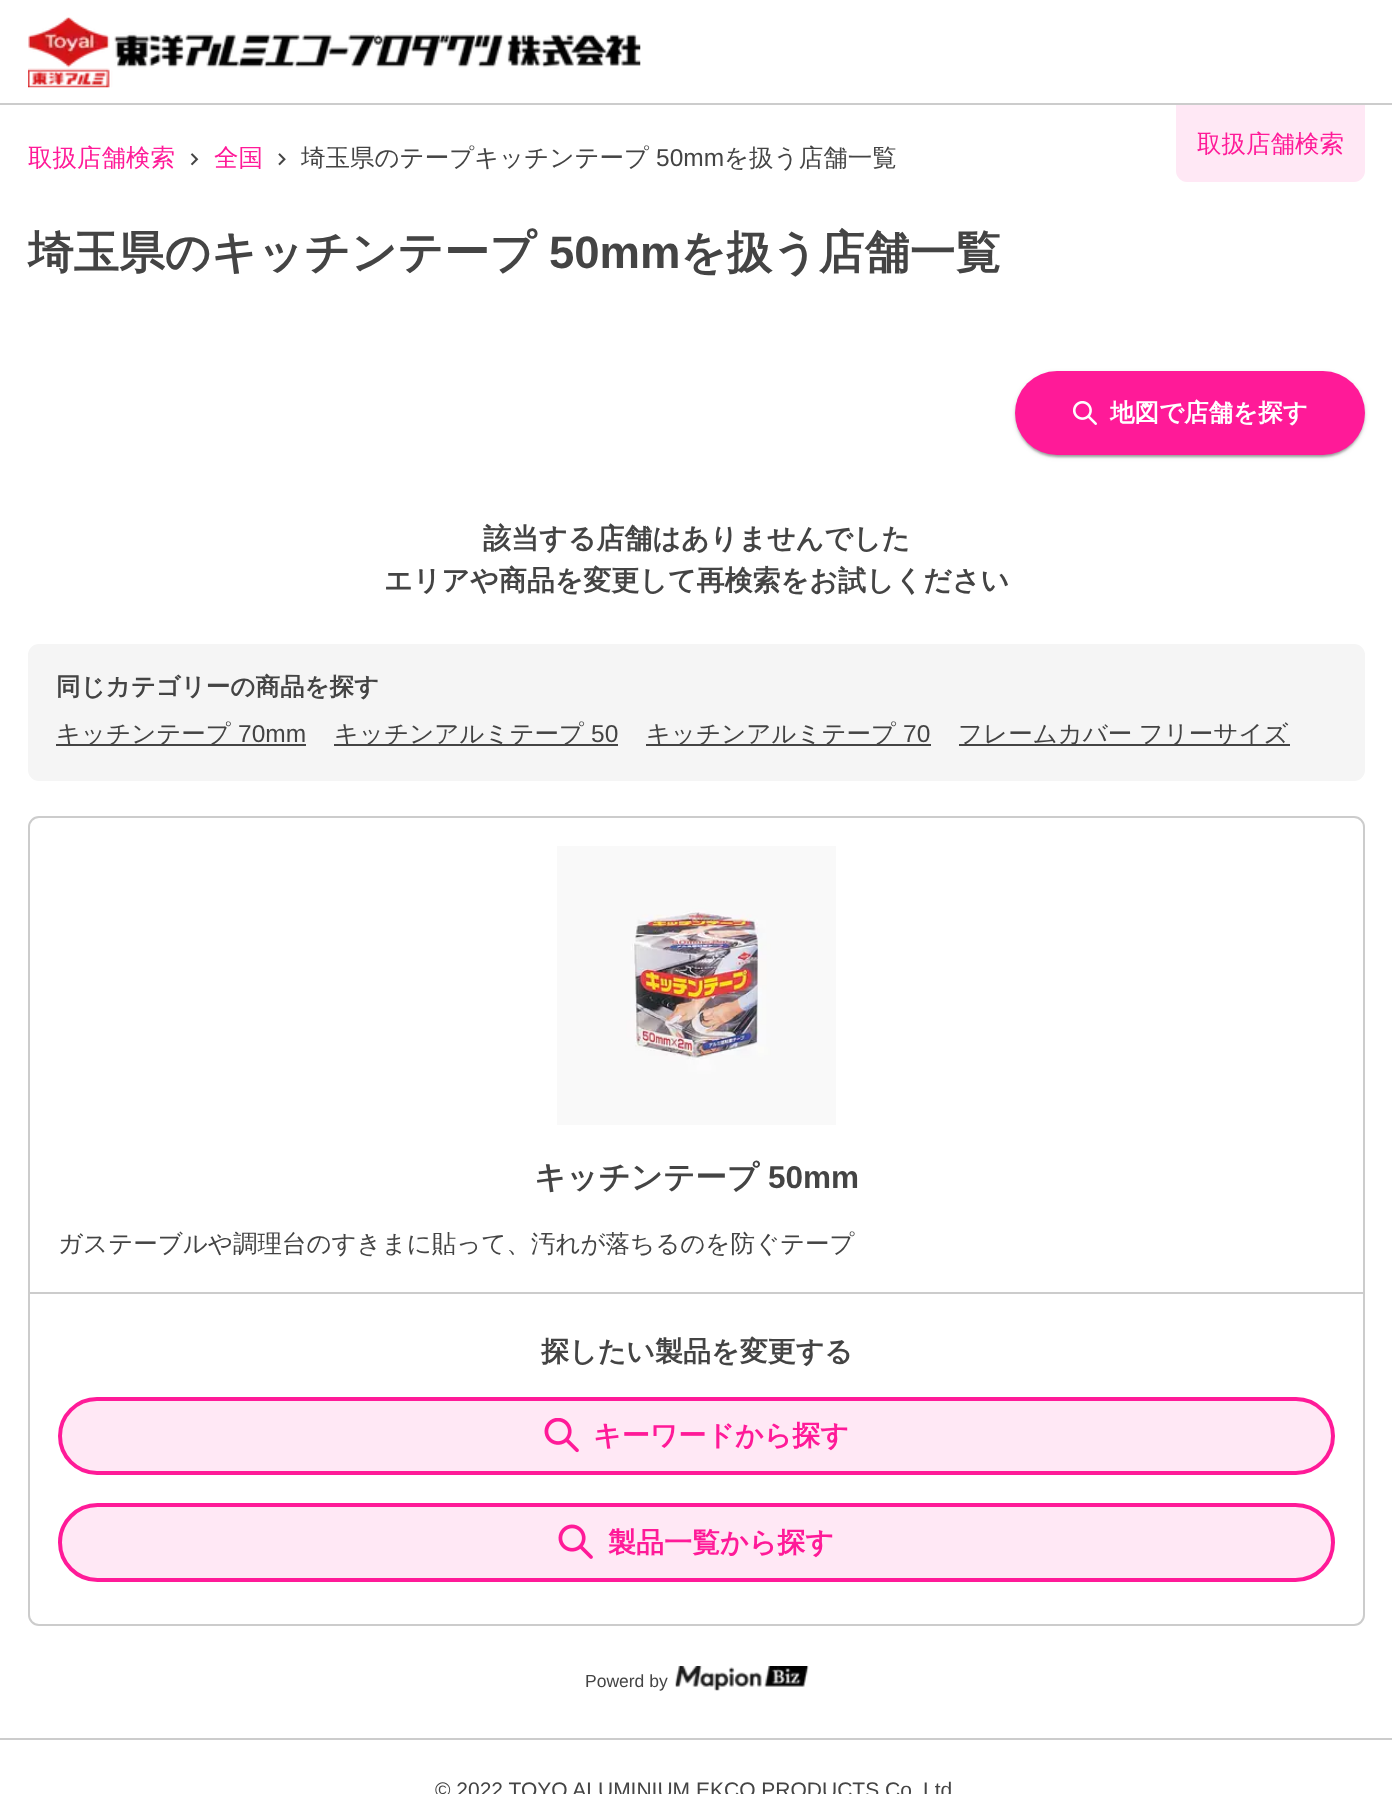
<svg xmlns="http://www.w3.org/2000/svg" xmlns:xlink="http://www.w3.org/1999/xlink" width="1392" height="1794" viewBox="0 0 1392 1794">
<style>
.cls-1{font:500 24.5px WenQuanYi Zen Hei;fill:#ff1a98}
.cls-2{font:500 24.5px WenQuanYi Zen Hei;fill:#444444}
.cls-3{font:24.5px Liberation Sans;fill:#444444}
.cls-4{font:bold 45.5px WenQuanYi Zen Hei;fill:#444444}
.cls-5{font:bold 45.5px Liberation Sans;fill:#444444}
.cls-6{font:bold 24.5px WenQuanYi Zen Hei;fill:#ffffff}
.cls-7{font:bold 28px WenQuanYi Zen Hei;fill:#444444}
.cls-8{font:bold 24.5px WenQuanYi Zen Hei;fill:#444444}
.cls-9{font:bold 31.5px WenQuanYi Zen Hei;fill:#444444}
.cls-10{font:bold 31.5px Liberation Sans;fill:#444444}
.cls-11{font:bold 28px WenQuanYi Zen Hei;fill:#ff1a98}
.cls-12{font:17.5px Liberation Sans;fill:#444444}
.cls-13{font:21px Liberation Sans;fill:#444444}
</style>
<rect width="100%" height="100%" fill="#ffffff"/>
<rect fill="#cccccc" x="0" y="103" width="1392" height="2"/>
<image xlink:href="image0.png" x="28" y="17" width="613" height="71"/>
<image xlink:href="image1.png" x="190" y="153" width="9" height="13"/>
<image xlink:href="image2.png" x="278" y="153" width="8" height="13"/>
<path fill="#ffe8f5" d="M1176 105H1365V171C1365 177 1360 182 1354 182H1187C1181 182 1176 177 1176 171Z"/>
<rect fill="#000000" fill-opacity="0.12" filter="blur(2.5px)" x="1015" y="373" width="350" height="84" rx="42"/>
<rect fill="#000000" fill-opacity="0.14" filter="blur(1px)" x="1015" y="373" width="350" height="84" rx="42"/>
<rect fill="#000000" fill-opacity="0.2" filter="blur(1px)" x="1017" y="376" width="346" height="81" rx="40.5"/>
<rect fill="#ff1a98" x="1015" y="371" width="350" height="84" rx="42"/>
<image xlink:href="image3.png" x="1073" y="401" width="24" height="24"/>
<rect fill="#f5f5f5" x="28" y="644" width="1337" height="137" rx="11"/>
<rect fill="#444444" x="56" y="744" width="250" height="2"/>
<rect fill="#444444" x="334" y="744" width="284" height="2"/>
<rect fill="#444444" x="646" y="744" width="285" height="2"/>
<rect fill="#444444" x="959" y="744" width="331" height="2"/>
<rect fill="none" stroke="#cccccc" stroke-width="2" x="29" y="817" width="1335" height="808" rx="10"/>
<image xlink:href="image4.png" x="557" y="846" width="279" height="279"/>
<rect fill="#cccccc" x="30" y="1292" width="1333" height="2"/>
<rect fill="#ffe8f5" stroke="#ff1a98" stroke-width="4" x="60" y="1399" width="1273" height="74" rx="37"/>
<image xlink:href="image5.png" x="544" y="1418" width="35" height="35"/>
<rect fill="#ffe8f5" stroke="#ff1a98" stroke-width="4" x="60" y="1505" width="1273" height="75" rx="37.5"/>
<image xlink:href="image6.png" x="558" y="1524" width="35" height="35"/>
<image xlink:href="image7.png" x="675" y="1666" width="134" height="25"/>
<rect fill="#cccccc" x="0" y="1738" width="1392" height="2"/>
<text class="cls-1" x="28" y="166">取扱店舗検索</text>
<text class="cls-1" x="214" y="166">全国</text>
<text class="cls-2" x="301" y="166">埼玉県のテープキッチンテープ</text>
<text class="cls-3" x="656" y="166">50mm</text>
<text class="cls-2" x="724" y="166">を扱う店舗一覧</text>
<text class="cls-1" x="1197" y="152">取扱店舗検索</text>
<text class="cls-4" x="28" y="268">埼玉県のキッチンテープ</text>
<text class="cls-5" x="549" y="268">50mm</text>
<text class="cls-4" x="680" y="268">を扱う店舗一覧</text>
<text class="cls-6" x="1110" y="421">地図で店舗を探す</text>
<text class="cls-7" x="483" y="548">該当する店舗はありませんでした</text>
<text class="cls-7" x="384" y="590">エリアや商品を変更して再検索をお試しください</text>
<text class="cls-8" x="56" y="695">同じカテゴリーの商品を探す</text>
<text class="cls-2" x="56" y="742">キッチンテープ</text>
<text class="cls-3" x="238" y="742">70mm</text>
<text class="cls-2" x="334" y="742">キッチンアルミテープ</text>
<text class="cls-3" x="591" y="742">50</text>
<text class="cls-2" x="646" y="742">キッチンアルミテープ</text>
<text class="cls-3" x="903" y="742">70</text>
<text class="cls-2" x="958" y="742" word-spacing="-1">フレームカバー フリーサイズ</text>
<text class="cls-9" x="534" y="1188">キッチンテープ</text>
<text class="cls-10" x="768" y="1188">50mm</text>
<text class="cls-2" x="58" y="1252">ガステーブルや調理台のすきまに貼って、汚れが落ちるのを防ぐテープ</text>
<text class="cls-7" x="541" y="1361">探したい製品を変更する</text>
<text class="cls-11" x="593" y="1445">キーワードから探す</text>
<text class="cls-11" x="608" y="1552">製品一覧から探す</text>
<text class="cls-12" x="585" y="1687">Powerd by</text>
<text class="cls-13" x="435" y="1797">© 2022 TOYO ALUMINIUM EKCO PRODUCTS Co</text>
<text class="cls-13" x="923" y="1797">Ltd</text>
</svg>
